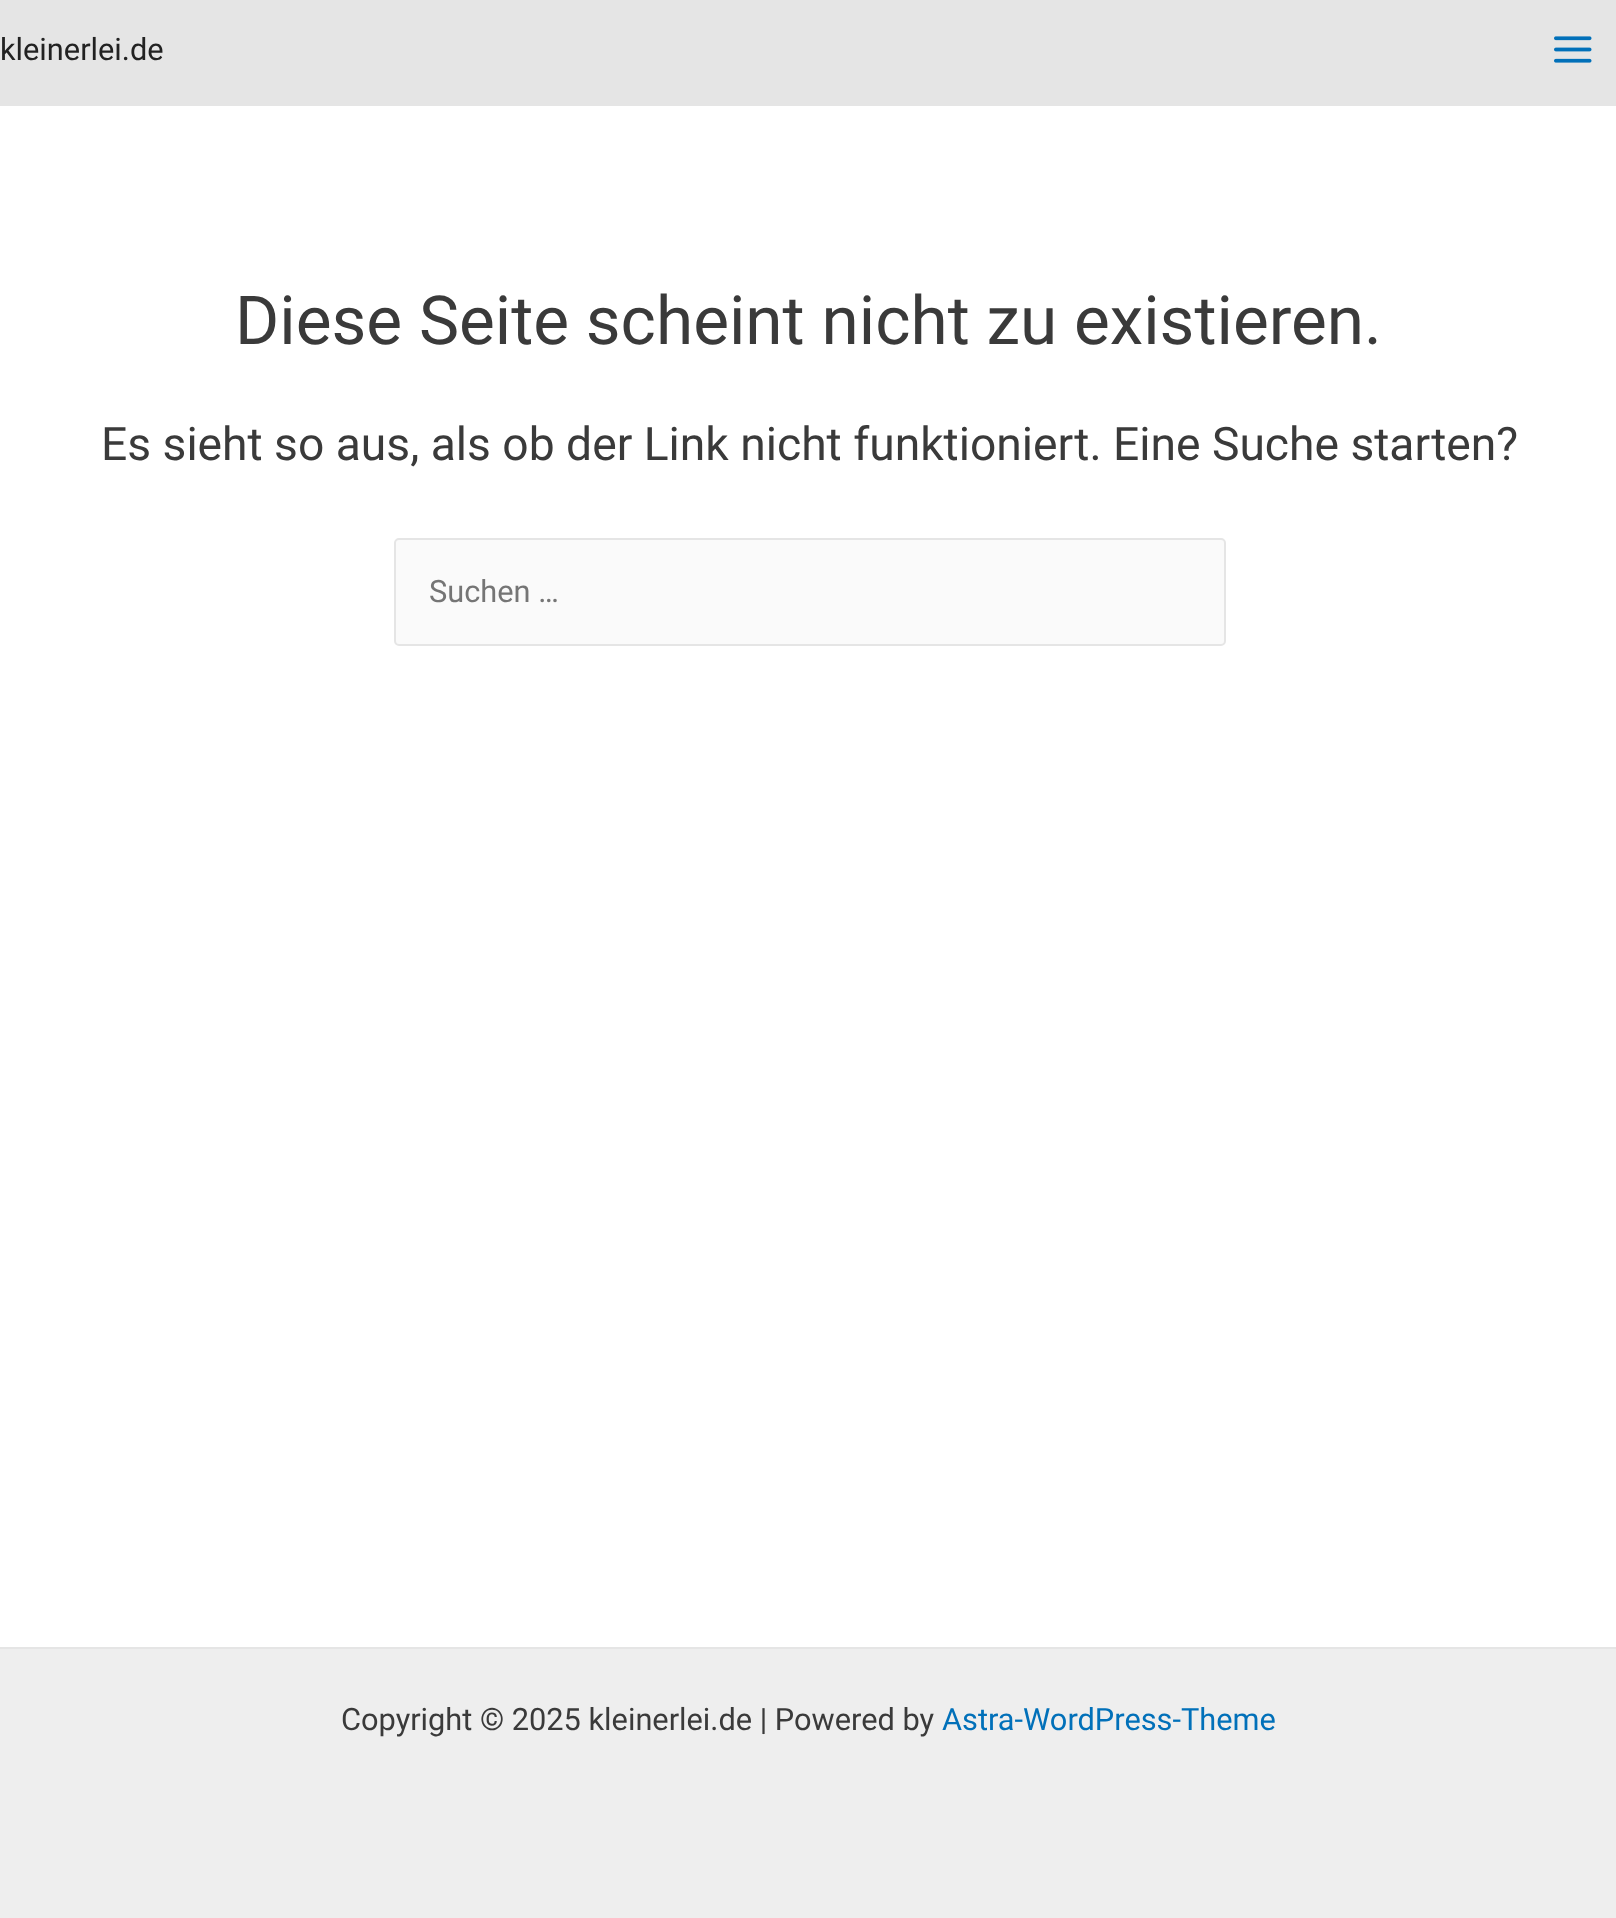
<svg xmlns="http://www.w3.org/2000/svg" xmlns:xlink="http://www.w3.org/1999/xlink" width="1616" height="1918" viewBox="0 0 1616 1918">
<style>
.cls-1{font:30.75px Roboto;fill:#222222}
.cls-2{font:67.5px Roboto;fill:#3a3a3a}
.cls-3{font:46.2px Roboto;fill:#3a3a3a}
.cls-4{font:30.75px Roboto;fill:#757575}
.cls-5{font:30.75px Roboto;fill:#3a3a3a}
.cls-6{font:30.75px Roboto;fill:#0170b9}
</style>
<rect width="100%" height="100%" fill="#ffffff"/>
<rect fill="#e5e5e5" x="0" y="0" width="1616" height="106"/>
<image xlink:href="image0.png" x="1554" y="36" width="38" height="27"/>
<rect fill="#fafafa" stroke="#e5e5e5" stroke-width="2" x="395" y="539" width="830" height="106" rx="4"/>
<rect fill="#eeeeee" x="0" y="1649" width="1616" height="269"/>
<rect fill="#e5e5e5" x="0" y="1647" width="1616" height="2"/>
<text class="cls-1" x="0" y="60">kleinerlei.de</text>
<text class="cls-2" x="235" y="344">Diese Seite scheint nicht zu existieren.</text>
<text class="cls-3" x="101" y="460">Es sieht so aus, als ob der Link nicht funktioniert. Eine Suche starten?</text>
<text class="cls-4" x="429" y="602">Suchen …</text>
<text class="cls-5" x="341" y="1730">Copyright © 2025 kleinerlei.de | Powered by</text>
<text class="cls-6" x="942" y="1730">Astra-WordPress-Theme</text>
</svg>
